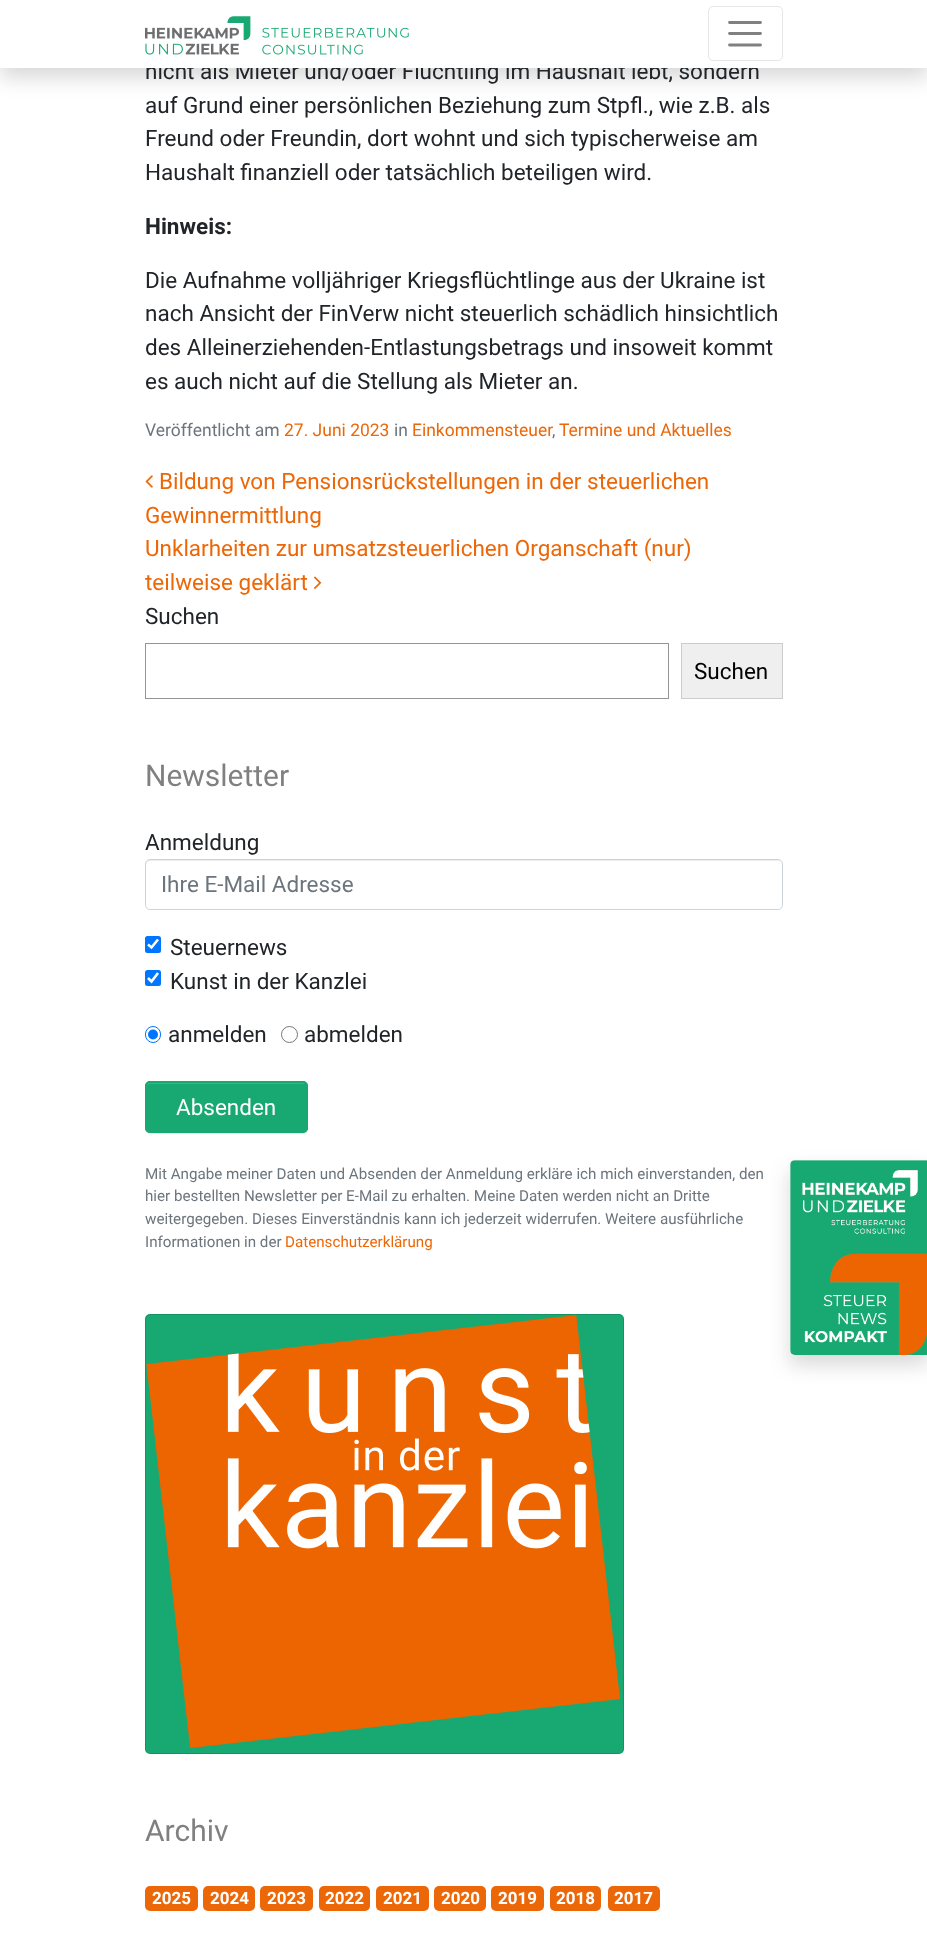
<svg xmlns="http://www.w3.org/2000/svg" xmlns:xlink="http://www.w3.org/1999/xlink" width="927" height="1933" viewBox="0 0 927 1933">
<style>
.cls-1{font:22.5px Roboto;fill:#212529}
.cls-2{font:bold 22.5px Roboto;fill:#212529}
.cls-3{font:17.5px Roboto;fill:#6c757d}
.cls-4{font:17.5px Roboto;fill:#ec6707}
.cls-5{font:22.5px Roboto;fill:#ec6707}
.cls-6{font:22.5px Roboto;fill:#000000}
.cls-7{font:30px Roboto;fill:#808080}
.cls-8{font:22.5px Roboto;fill:#6c757d}
.cls-9{font:22.5px Roboto;fill:#ffffff}
.cls-10{font:15.2px Roboto;fill:#6c757d}
.cls-11{font:15.2px Roboto;fill:#ec6707}
.cls-12{font:bold 17px Roboto;fill:#ffffff}
</style>
<rect width="100%" height="100%" fill="#ffffff"/>
<rect fill="#000000" fill-opacity="0.15" filter="blur(10px)" x="0" y="10" width="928" height="68"/>
<image xlink:href="image1.png" x="145" y="475" width="8" height="13"/>
<image xlink:href="image2.png" x="314" y="576" width="8" height="13"/>
<rect fill="none" stroke="#949494" x="145.5" y="643.5" width="523" height="55"/>
<rect fill="#efefef" stroke="#cccccc" x="681.5" y="643.5" width="101" height="55"/>
<path fill="#ececec" d="M150 861H778C780 861 781 863 781 865C781 862 780 860 777 860H150C147 860 146 862 146 865C146 863 148 861 150 861Z"/>
<rect fill="none" stroke="#ced4da" x="145.5" y="859.5" width="637" height="50" rx="4.5"/>
<rect fill="#0075ff" x="145" y="936" width="16" height="17" rx="2.5"/>
<path fill="none" stroke="#ffffff" stroke-width="2.6" d="M148 944.5L151.5 947.5L158 939.5"/>
<rect fill="#0075ff" x="145" y="970" width="16" height="16" rx="2.5"/>
<path fill="none" stroke="#ffffff" stroke-width="2.6" d="M148 978L151.5 981.5L158 973"/>
<rect fill="none" stroke="#0075ff" x="145.5" y="1026.5" width="15" height="16" rx="7.5"/>
<circle fill="#0075ff" cx="153" cy="1034.5" r="5"/>
<circle fill="none" stroke="#767676" cx="289.5" cy="1034.5" r="8"/>
<rect fill="#000000" fill-opacity="0.07" filter="blur(0.5px)" x="145" y="1083" width="163" height="51" rx="5"/>
<rect fill="#18a871" x="145" y="1081" width="163" height="52" rx="5"/>
<path fill="#3bb586" d="M150 1084H302C305 1084 306 1085 306 1088C306 1086 305 1084 303 1083H149C147 1084 146 1086 146 1088C146 1085 148 1084 150 1084Z"/>
<rect fill="none" stroke="#18a871" x="145.5" y="1081.5" width="162" height="51" rx="4.5"/>
<rect fill="#18a871" x="145" y="1314" width="479" height="440" rx="5"/>
<rect fill="none" stroke="#000000" stroke-opacity="0.12" x="145.5" y="1314.5" width="478" height="439" rx="4.5"/>
<image xlink:href="image3.png" x="146" y="1315" width="474" height="433"/>
<rect fill="#ec6707" x="145" y="1886" width="53" height="25" rx="5"/>
<rect fill="#ec6707" x="203" y="1886" width="52" height="25" rx="5"/>
<rect fill="#ec6707" x="260" y="1886" width="53" height="25" rx="5"/>
<rect fill="#ec6707" x="319" y="1886" width="51" height="25" rx="5"/>
<rect fill="#ec6707" x="376" y="1886" width="53" height="25" rx="5"/>
<rect fill="#ec6707" x="434" y="1886" width="52" height="25" rx="5"/>
<rect fill="#ec6707" x="491" y="1886" width="53" height="25" rx="5"/>
<rect fill="#ec6707" x="550" y="1886" width="51" height="25" rx="5"/>
<rect fill="#ec6707" x="608" y="1886" width="52" height="25" rx="5"/>
<rect fill="#000000" fill-opacity="0.15" filter="blur(10px)" x="790" y="1170" width="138" height="195"/>
<image xlink:href="image4.png" x="790" y="1160" width="137" height="195"/>
<text class="cls-1" x="145" y="79">nicht als Mieter und/oder Flüchtling im Haushalt lebt, sondern</text>
<rect fill="#ffffff" x="0" y="0" width="927" height="68"/>
<rect fill="none" stroke="#e6e6e6" x="708.5" y="6.5" width="74" height="54" rx="4.5"/>
<path fill="none" stroke="#808080" stroke-width="2.8" stroke-linecap="round" d="M729.5 22.5H760.5M729.5 33.5H760.5M729.5 45H760.5"/>
<image xlink:href="image0.png" x="145" y="16" width="264" height="39"/>
<text class="cls-1"><tspan x="145" y="113">auf Grund einer persönlichen Beziehung zum Stpfl., wie z.B. als</tspan><tspan x="145" y="146">Freund oder Freundin, dort wohnt und sich typischerweise am</tspan><tspan x="145" y="180">Haushalt finanziell oder tatsächlich beteiligen wird.</tspan></text>
<text class="cls-2" x="145" y="234">Hinweis:</text>
<text class="cls-1"><tspan x="145" y="288">Die Aufnahme volljähriger Kriegsflüchtlinge aus der Ukraine ist</tspan><tspan x="145" y="321">nach Ansicht der FinVerw nicht steuerlich schädlich hinsichtlich</tspan><tspan x="145" y="355">des Alleinerziehenden-Entlastungsbetrags und insoweit kommt</tspan><tspan x="145" y="389">es auch nicht auf die Stellung als Mieter an.</tspan></text>
<text class="cls-3" x="145" y="436">Veröffentlicht am</text>
<text class="cls-4" x="284" y="436">27. Juni 2023</text>
<text class="cls-3" x="394" y="436">in</text>
<text class="cls-4" x="412" y="436">Einkommensteuer</text>
<text class="cls-4" x="559" y="436">Termine und Aktuelles</text>
<text class="cls-3" x="552" y="436">,</text>
<text class="cls-5" x="159" y="489">Bildung von Pensionsrückstellungen in der steuerlichen</text>
<text class="cls-5"><tspan x="145" y="523">Gewinnermittlung</tspan><tspan x="145" y="556">Unklarheiten zur umsatzsteuerlichen Organschaft (nur)</tspan><tspan x="145" y="590">teilweise geklärt</tspan></text>
<text class="cls-1" x="145" y="624">Suchen</text>
<text class="cls-6" x="694" y="679">Suchen</text>
<text class="cls-7" x="145" y="786">Newsletter</text>
<text class="cls-1" x="145" y="850">Anmeldung</text>
<text class="cls-8" x="161" y="892">Ihre E-Mail Adresse</text>
<text class="cls-1"><tspan x="170" y="955">Steuernews</tspan><tspan x="170" y="989">Kunst in der Kanzlei</tspan></text>
<text class="cls-1" x="168" y="1042">anmelden</text>
<text class="cls-1" x="304" y="1042">abmelden</text>
<text class="cls-9" x="176" y="1115">Absenden</text>
<text class="cls-10"><tspan x="145" y="1179">Mit Angabe meiner Daten und Absenden der Anmeldung erkläre ich mich einverstanden, den</tspan><tspan x="145" y="1201">hier bestellten Newsletter per E-Mail zu erhalten. Meine Daten werden nicht an Dritte</tspan><tspan x="145" y="1224">weitergegeben. Dieses Einverständnis kann ich jederzeit widerrufen. Weitere ausführliche</tspan><tspan x="145" y="1247">Informationen in der</tspan></text>
<text class="cls-11" x="285" y="1247">Datenschutzerklärung</text>
<text class="cls-7" x="145" y="1841">Archiv</text>
<text class="cls-12" x="152" y="1904">2025</text>
<text class="cls-12" x="210" y="1904">2024</text>
<text class="cls-12" x="267" y="1904">2023</text>
<text class="cls-12" x="325" y="1904">2022</text>
<text class="cls-12" x="383" y="1904">2021</text>
<text class="cls-12" x="441" y="1904">2020</text>
<text class="cls-12" x="498" y="1904">2019</text>
<text class="cls-12" x="556" y="1904">2018</text>
<text class="cls-12" x="614" y="1904">2017</text>
</svg>
